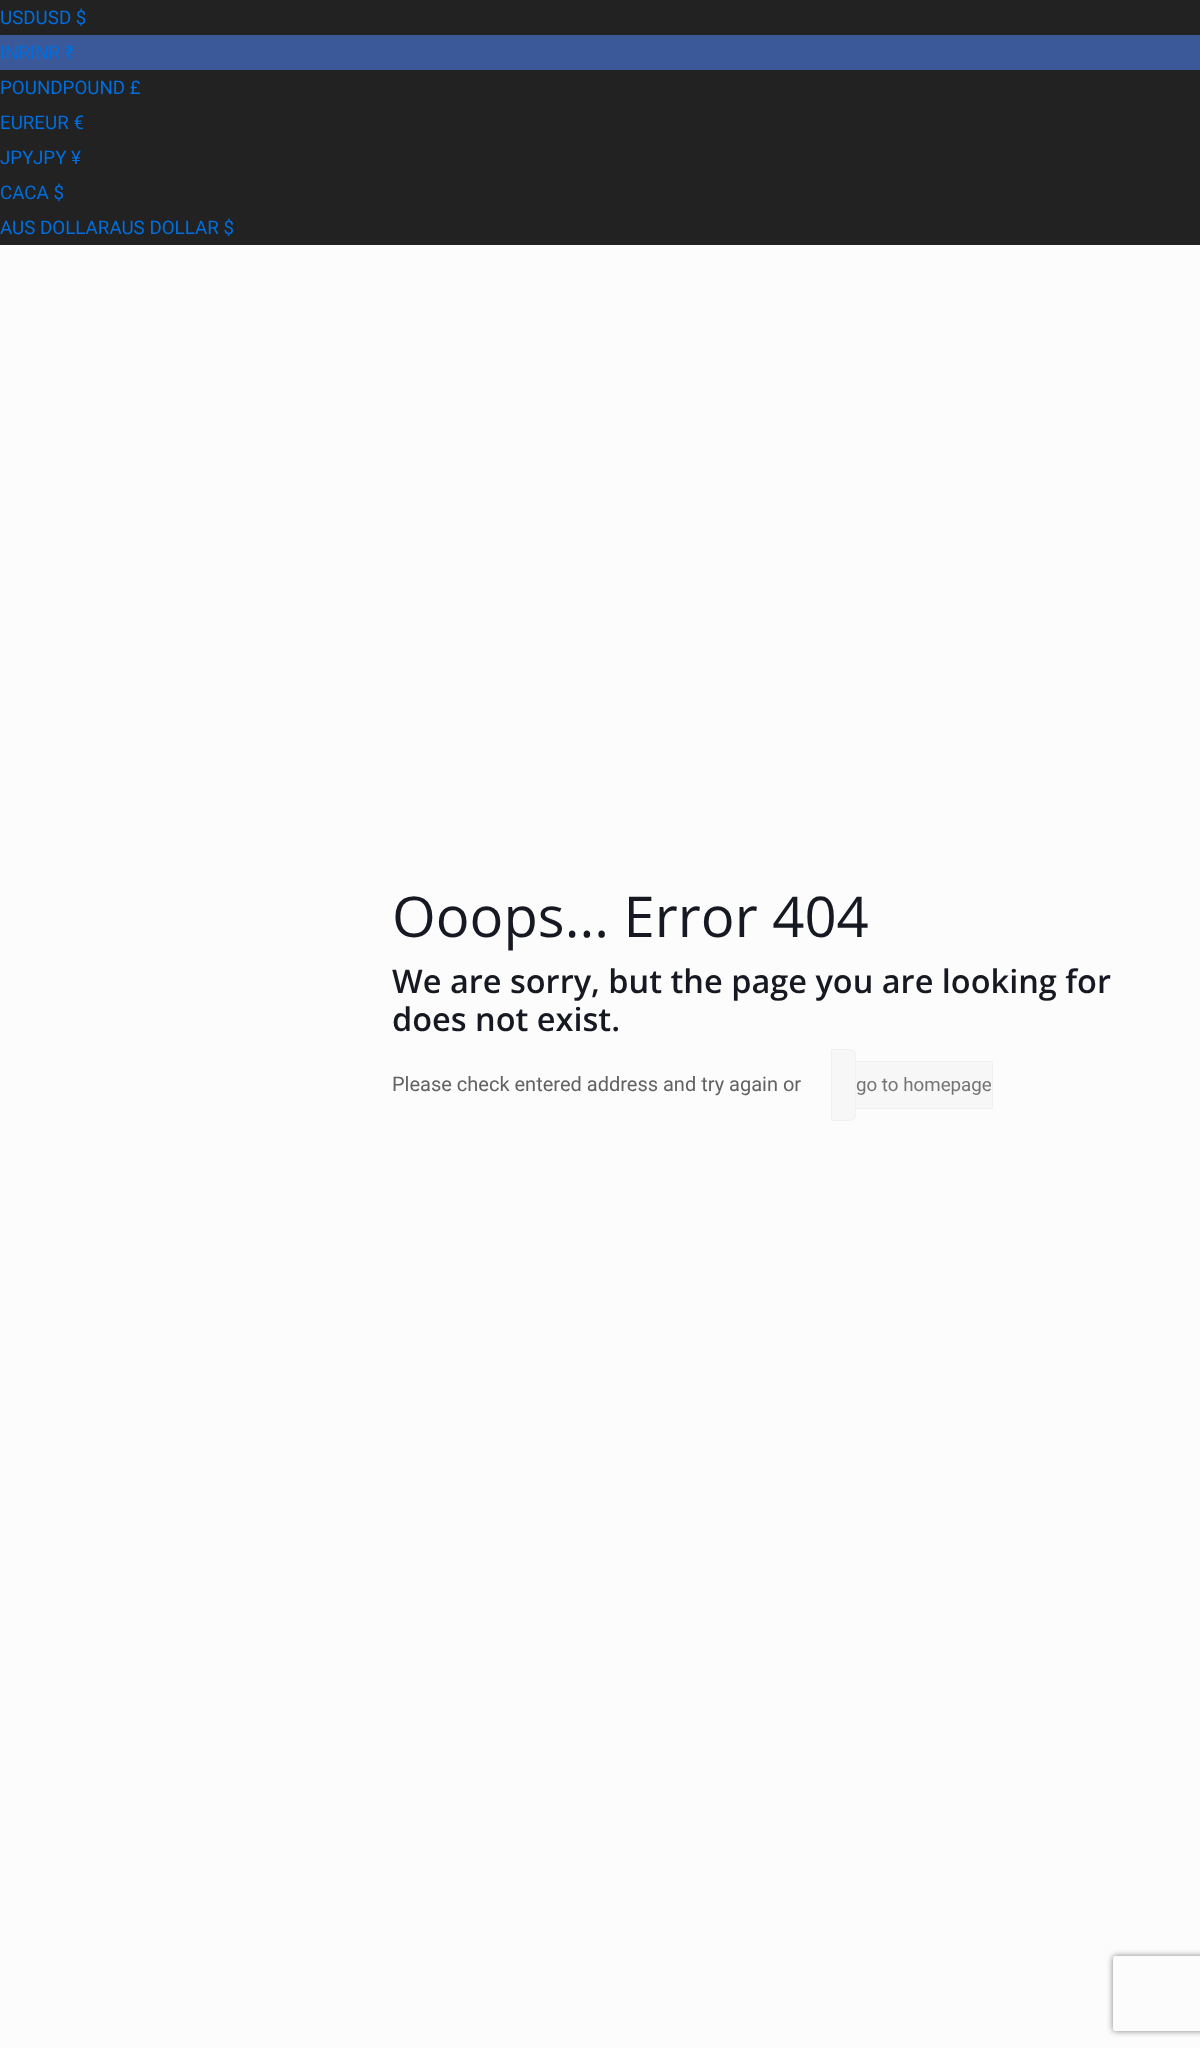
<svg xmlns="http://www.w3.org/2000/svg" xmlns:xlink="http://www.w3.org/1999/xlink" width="1200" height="2048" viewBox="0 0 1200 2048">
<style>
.cls-1{font:18.75px Roboto;fill:#006edf}
.cls-2{font:56.25px Open Sans;fill:#161922}
.cls-3{font:600 32.5px Open Sans;fill:#161922}
.cls-4{font:20px Roboto;fill:#626262}
.cls-5{font:18.75px Roboto;fill:#747474}
</style>
<defs>
<clipPath id="clip1"><path d="M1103 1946H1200V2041H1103ZM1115.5 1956H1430.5C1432 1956 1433 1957 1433 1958.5V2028.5C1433 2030 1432 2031 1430.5 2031H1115.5C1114 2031 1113 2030 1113 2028.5V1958.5C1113 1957 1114 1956 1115.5 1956Z" clip-rule="evenodd"/></clipPath>
</defs>
<rect width="100%" height="100%" fill="#fcfcfc"/>
<rect fill="#222222" x="0" y="0" width="1200" height="35"/>
<rect fill="#3b5998" x="0" y="35" width="1200" height="35"/>
<rect fill="#222222" x="0" y="70" width="1200" height="175"/>
<rect fill="#f7f7f7" x="856" y="1062" width="136" height="46"/>
<rect fill="none" stroke="#f0f0f0" x="831.5" y="1061.5" width="161" height="47"/>
<path fill="#f7f7f7" stroke="#f0f0f0" d="M831.5 1049.5H850C853 1049.5 855.5 1052 855.5 1055V1115C855.5 1118 853 1120.5 850 1120.5H831.5Z"/>
<g clip-path="url(#clip1)">
<rect fill="#808080" filter="blur(3px)" x="1113" y="1956" width="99" height="75" rx="2.5"/>
</g>
<text class="cls-1"><tspan x="0" y="24">USDUSD $</tspan><tspan x="0" y="59">INRINR ₹</tspan><tspan x="0" y="94">POUNDPOUND £</tspan><tspan x="0" y="129">EUREUR €</tspan><tspan x="0" y="164">JPY</tspan></text>
<text class="cls-1" x="33" y="164">JPY ¥</text>
<text class="cls-1"><tspan x="0" y="199">CACA $</tspan><tspan x="0" y="234">AUS DOLLARAUS DOLLAR $</tspan></text>
<text class="cls-2" x="392" y="937">Ooops... Error 404</text>
<text class="cls-3"><tspan x="392" y="993">We are sorry, but the page you are looking for</tspan><tspan x="392" y="1031">does not exist.</tspan></text>
<text class="cls-4" x="392" y="1091">Please check entered address and try again or</text>
<text class="cls-5" x="856" y="1091">go to homepage</text>
</svg>
